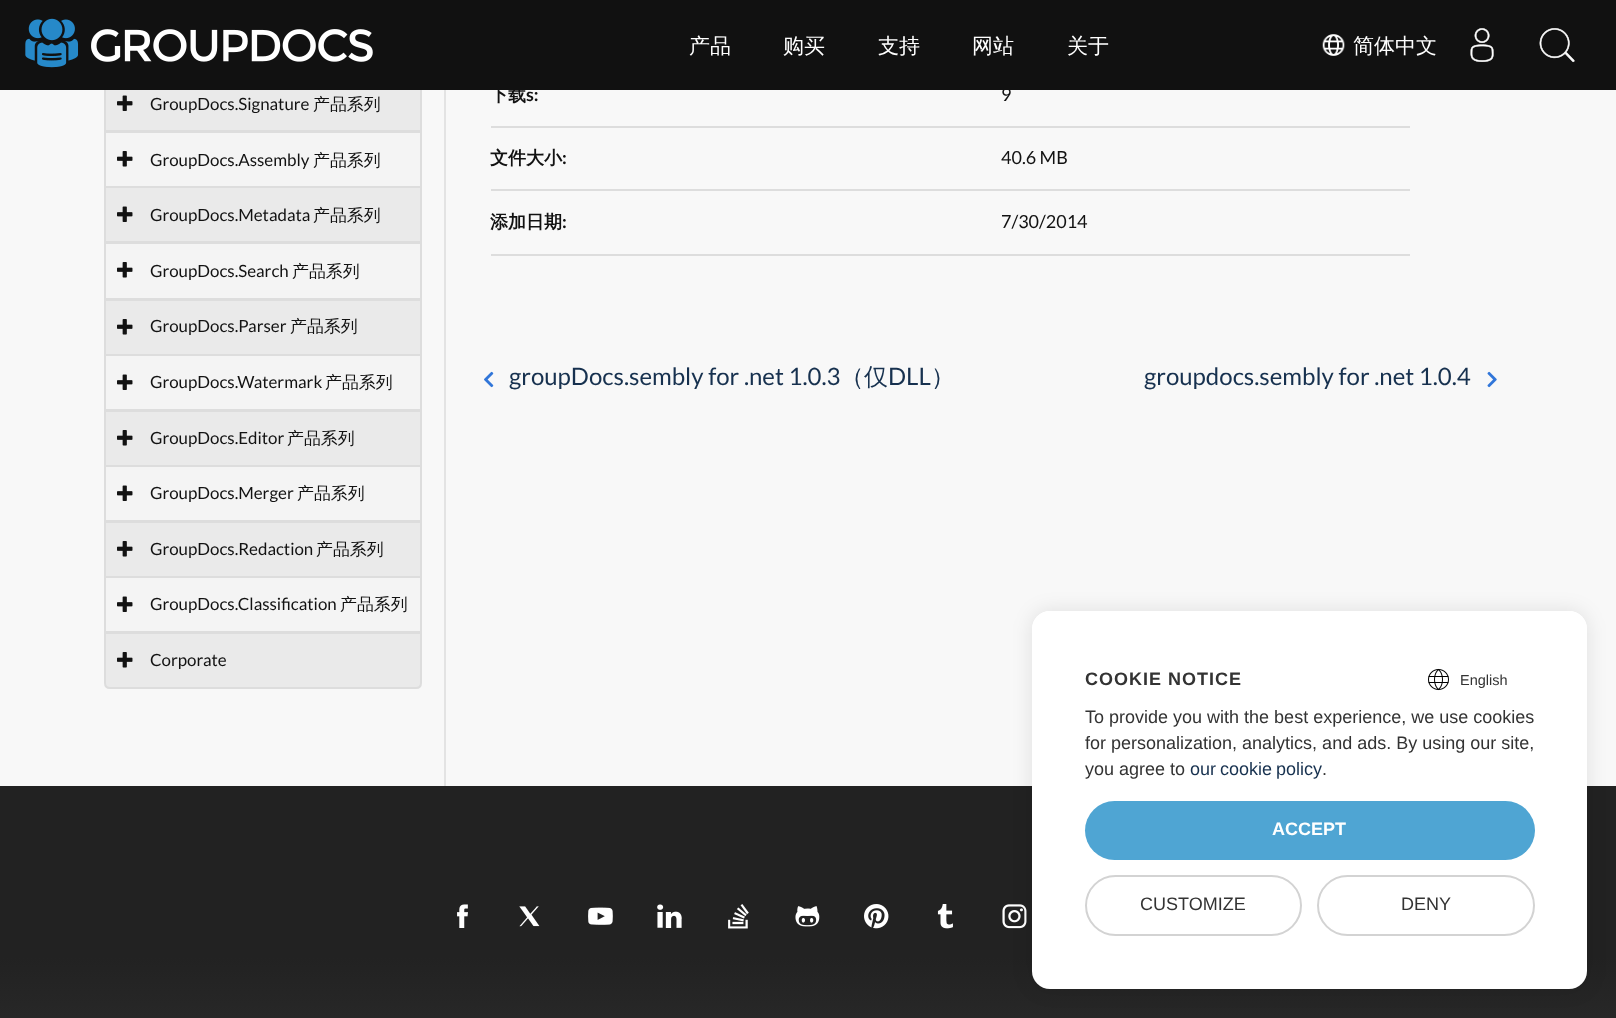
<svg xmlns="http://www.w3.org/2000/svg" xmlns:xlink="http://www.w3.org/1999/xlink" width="1616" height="1018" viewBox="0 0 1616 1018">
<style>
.cls-1{font:16.9px Lato;fill:#121212}
.cls-2{font:500 16.9px WenQuanYi Zen Hei;fill:#121212}
.cls-3{font:bold 18px WenQuanYi Zen Hei;fill:#121212}
.cls-4{font:bold 18px Lato;fill:#121212}
.cls-5{font:18px Lato;fill:#121212}
.cls-6{font:500 21px WenQuanYi Zen Hei;fill:#ffffff}
.cls-7{font:24px Lato;fill:#17314f}
.cls-8{font:500 24px WenQuanYi Zen Hei;fill:#17314f}
.cls-9{font:bold 18px Liberation Sans;letter-spacing:1px;fill:#333333}
.cls-10{font:14.5px Liberation Sans;fill:#333333}
.cls-11{font:18px Liberation Sans;fill:#333333}
.cls-12{font:18px Liberation Sans;fill:#17314f}
.cls-13{font:bold 18px Liberation Sans;fill:#ffffff}
</style>
<defs>
<linearGradient id="g1" gradientUnits="userSpaceOnUse" x1="809" y1="786" x2="809" y2="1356"><stop offset="0.3" stop-color="#222222"/><stop offset="1" stop-color="#444444"/></linearGradient>
</defs>
<rect width="100%" height="100%" fill="#f8f8f8"/>
<rect fill="#e3e3e3" x="444" y="90" width="2" height="696"/>
<rect fill="#eaeaea" x="106" y="90" width="314" height="40"/>
<rect fill="none" stroke="#dddddd" stroke-width="2" x="105" y="76" width="316" height="55"/>
<image xlink:href="image4.png" x="117" y="95" width="16" height="16"/>
<rect fill="#f4f4f4" stroke="#dddddd" stroke-width="2" x="105" y="132" width="316" height="55"/>
<image xlink:href="image5.png" x="117" y="151" width="16" height="16"/>
<rect fill="#eaeaea" stroke="#dddddd" stroke-width="2" x="105" y="187" width="316" height="55"/>
<image xlink:href="image4.png" x="117" y="206" width="16" height="16"/>
<rect fill="#f4f4f4" stroke="#dddddd" stroke-width="2" x="105" y="243" width="316" height="56"/>
<image xlink:href="image5.png" x="117" y="262" width="16" height="16"/>
<rect fill="#eaeaea" stroke="#dddddd" stroke-width="2" x="105" y="300" width="316" height="55"/>
<image xlink:href="image6.png" x="117" y="319" width="16" height="16"/>
<rect fill="#f4f4f4" stroke="#dddddd" stroke-width="2" x="105" y="355" width="316" height="55"/>
<image xlink:href="image7.png" x="117" y="374" width="16" height="16"/>
<rect fill="#eaeaea" stroke="#dddddd" stroke-width="2" x="105" y="411" width="316" height="55"/>
<image xlink:href="image6.png" x="117" y="430" width="16" height="16"/>
<rect fill="#f4f4f4" stroke="#dddddd" stroke-width="2" x="105" y="466" width="316" height="55"/>
<image xlink:href="image7.png" x="117" y="485" width="16" height="16"/>
<rect fill="#eaeaea" stroke="#dddddd" stroke-width="2" x="105" y="522" width="316" height="55"/>
<image xlink:href="image6.png" x="117" y="541" width="16" height="16"/>
<rect fill="#f4f4f4" stroke="#dddddd" stroke-width="2" x="105" y="577" width="316" height="55"/>
<image xlink:href="image7.png" x="117" y="596" width="16" height="16"/>
<path fill="#eaeaea" stroke="#dddddd" stroke-width="2" d="M105 633H421V683C421 686 419 688 416 688H110C107 688 105 686 105 683Z"/>
<image xlink:href="image6.png" x="117" y="652" width="16" height="16"/>
<rect fill="#dddddd" x="491" y="126" width="919" height="2"/>
<rect fill="#dddddd" x="491" y="189" width="919" height="2"/>
<rect fill="#dddddd" x="491" y="254" width="919" height="2"/>
<image xlink:href="image8.png" x="484" y="371" width="10" height="17"/>
<image xlink:href="image9.png" x="1487" y="371" width="10" height="17"/>
<rect fill="url(#g1)" x="0" y="786" width="1616" height="232"/>
<image xlink:href="image19.png" x="1002" y="904" width="25" height="25"/>
<rect fill="#000000" fill-opacity="0.1" filter="blur(10px)" x="1032" y="611" width="555" height="378" rx="18"/>
<rect fill="#ffffff" x="1032" y="611" width="555" height="378" rx="18"/>
<path fill="#ffffff" d="M1050 611H1569C1579 611 1587 619 1587 629V698H1032V629C1032 619 1040 611 1050 611Z"/>
<image xlink:href="image10.png" x="1428" y="668" width="21" height="23"/>
<rect fill="#4fa5d3" x="1085" y="801" width="450" height="59" rx="29.5"/>
<rect fill="none" stroke="#d3d3d3" stroke-width="2" x="1086" y="876" width="215" height="59" rx="29.5"/>
<rect fill="none" stroke="#d3d3d3" stroke-width="2" x="1318" y="876" width="216" height="59" rx="29.5"/>
<image xlink:href="image11.png" x="457" y="904" width="11" height="24"/>
<image xlink:href="image12.png" x="519" y="906" width="21" height="21"/>
<image xlink:href="image13.png" x="588" y="907" width="25" height="18"/>
<image xlink:href="image14.png" x="657" y="904" width="25" height="24"/>
<image xlink:href="image15.png" x="728" y="904" width="21" height="25"/>
<image xlink:href="image16.png" x="795" y="906" width="25" height="21"/>
<image xlink:href="image17.png" x="864" y="904" width="25" height="25"/>
<image xlink:href="image18.png" x="937" y="904" width="16" height="25"/>
<text class="cls-1" x="150" y="110">GroupDocs.Signature</text>
<text class="cls-2" x="313" y="110">产品系列</text>
<text class="cls-1" x="150" y="166">GroupDocs.Assembly</text>
<text class="cls-2" x="313" y="166">产品系列</text>
<text class="cls-1" x="150" y="221">GroupDocs.Metadata</text>
<text class="cls-2" x="313" y="221">产品系列</text>
<text class="cls-1" x="150" y="277">GroupDocs.Search</text>
<text class="cls-2" x="292" y="277">产品系列</text>
<text class="cls-1" x="150" y="332">GroupDocs.Parser</text>
<text class="cls-2" x="290" y="332">产品系列</text>
<text class="cls-1" x="150" y="388">GroupDocs.Watermark</text>
<text class="cls-2" x="325" y="388">产品系列</text>
<text class="cls-1" x="150" y="444">GroupDocs.Editor</text>
<text class="cls-2" x="287" y="444">产品系列</text>
<text class="cls-1" x="150" y="499">GroupDocs.Merger</text>
<text class="cls-2" x="297" y="499">产品系列</text>
<text class="cls-1" x="150" y="555">GroupDocs.Redaction</text>
<text class="cls-2" x="316" y="555">产品系列</text>
<text class="cls-1" x="150" y="610">GroupDocs.Classification</text>
<text class="cls-2" x="340" y="610">产品系列</text>
<text class="cls-1" x="150" y="666">Corporate</text>
<text class="cls-3" x="490" y="101">下载</text>
<text class="cls-4" x="526" y="101">s:</text>
<text class="cls-5" x="1001" y="101">9</text>
<rect fill="#111111" x="0" y="0" width="1616" height="90"/>
<text class="cls-6" x="1353" y="53">简体中文</text>
<image xlink:href="image1.png" x="1322" y="34" width="23" height="22"/>
<image xlink:href="image2.png" x="1470" y="28" width="24" height="34"/>
<text class="cls-6" x="1067" y="53">关于</text>
<text class="cls-6" x="972" y="53">网站</text>
<text class="cls-6" x="878" y="53">支持</text>
<text class="cls-6" x="783" y="53">购买</text>
<text class="cls-6" x="689" y="53">产品</text>
<image xlink:href="image3.png" x="1539" y="28" width="36" height="35"/>
<image xlink:href="image0.png" x="25" y="18" width="348" height="50"/>
<text class="cls-3" x="490" y="164">文件大小</text>
<text class="cls-4" x="562" y="164">:</text>
<text class="cls-5" x="1001" y="164">40.6 MB</text>
<text class="cls-3" x="490" y="228">添加日期</text>
<text class="cls-4" x="562" y="228">:</text>
<text class="cls-5" x="1001" y="228">7/30/2014</text>
<text class="cls-7" x="509" y="385">groupDocs.sembly for .net 1.0.3</text>
<text class="cls-8" x="840" y="385">（仅</text>
<text class="cls-7" x="888" y="385">DLL</text>
<text class="cls-8" x="931" y="385">）</text>
<text class="cls-7" x="1144" y="385">groupdocs.sembly for .net 1.0.4</text>
<text class="cls-9" x="1085" y="685">COOKIE NOTICE</text>
<text class="cls-10" x="1460" y="685">English</text>
<text class="cls-11"><tspan x="1085" y="723">To provide you with the best experience, we use cookies</tspan><tspan x="1085" y="749">for personalization, analytics, and ads. By using our site,</tspan><tspan x="1085" y="775">you agree to</tspan></text>
<text class="cls-12" x="1190" y="775" word-spacing="-1">our cookie policy</text>
<text class="cls-11" x="1322" y="775">.</text>
<text class="cls-13" x="1272" y="835">ACCEPT</text>
<text class="cls-11" x="1140" y="910">CUSTOMIZE</text>
<text class="cls-11" x="1401" y="910">DENY</text>
</svg>
